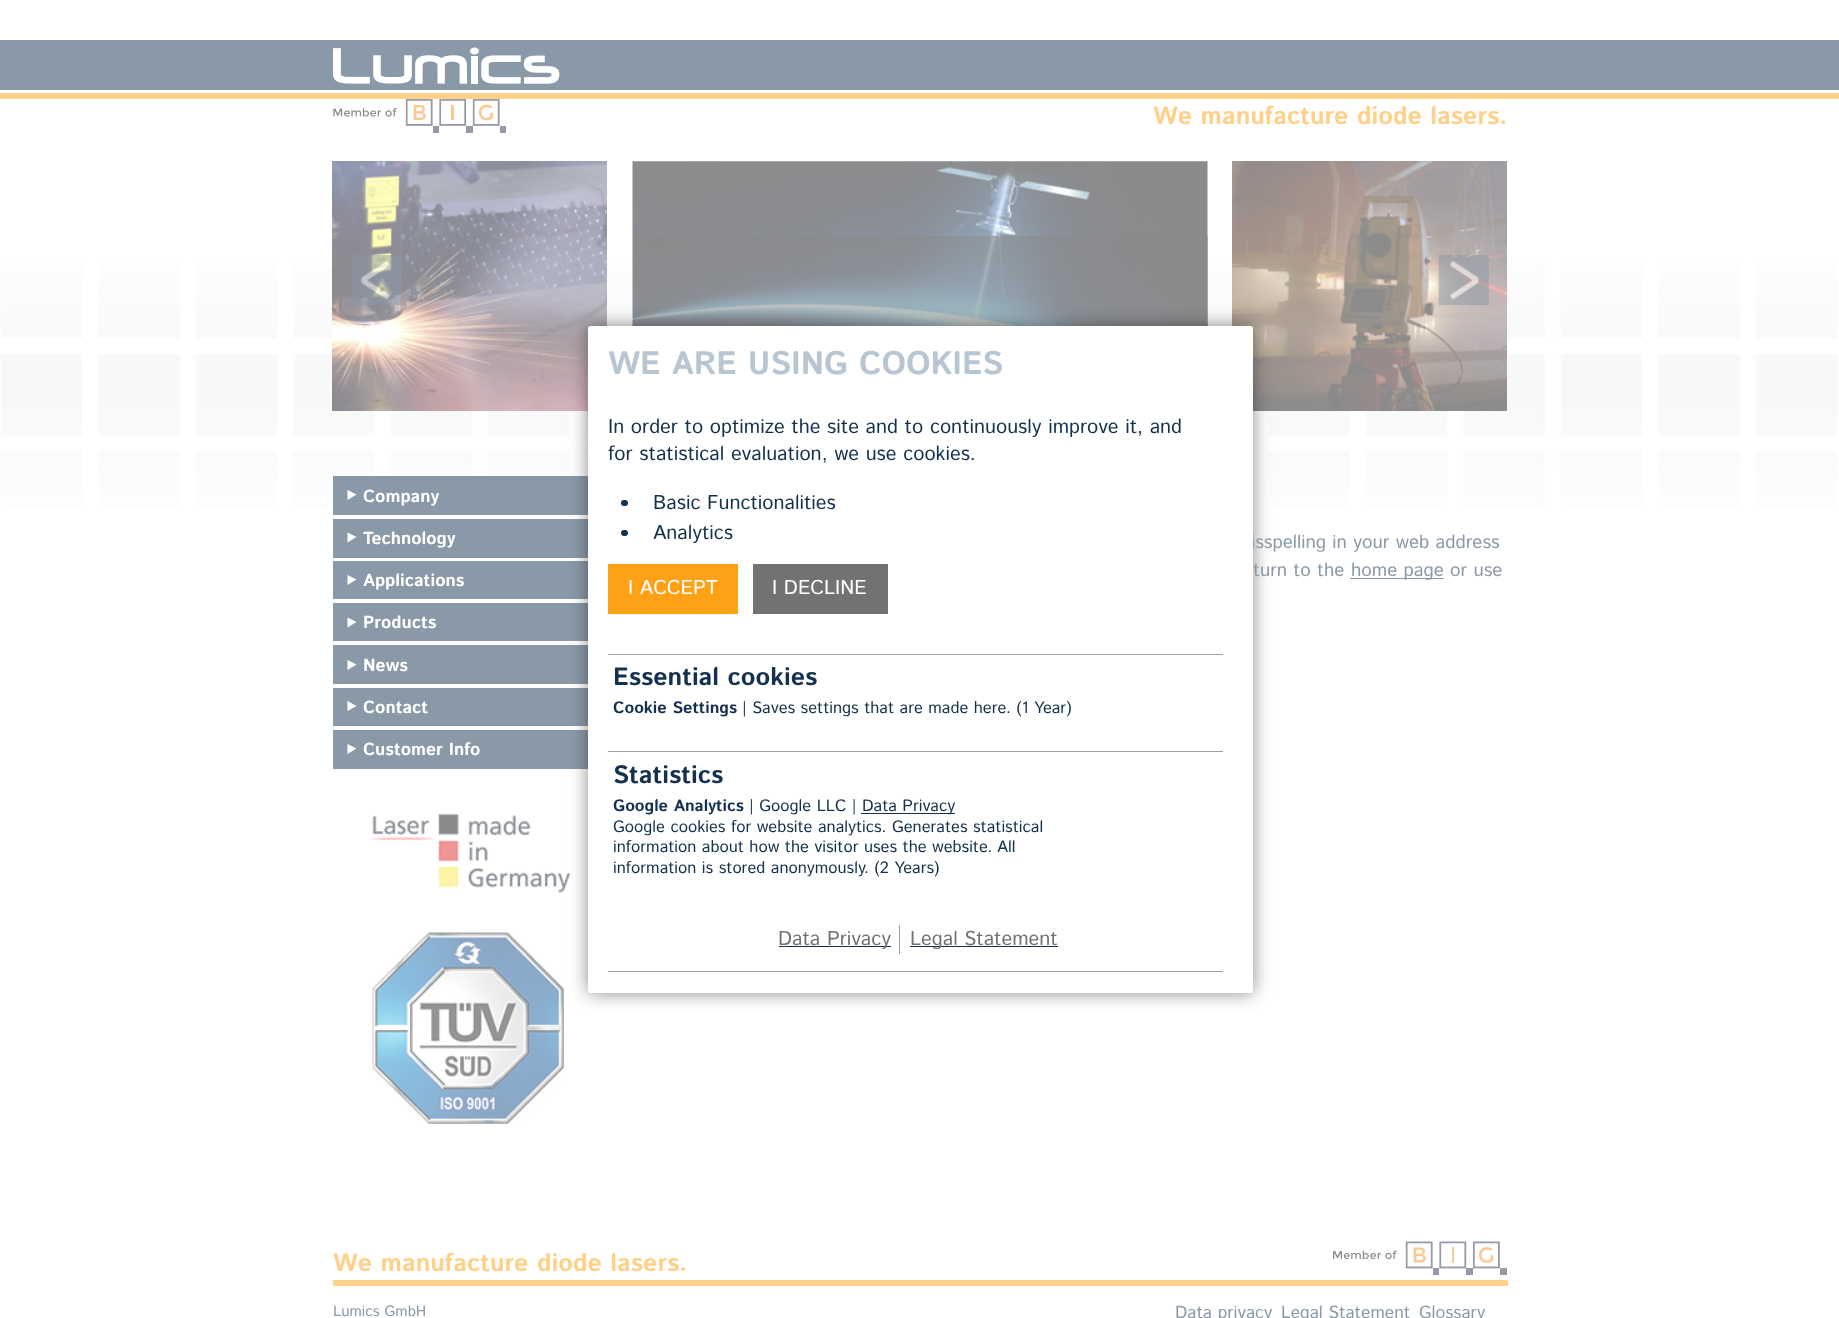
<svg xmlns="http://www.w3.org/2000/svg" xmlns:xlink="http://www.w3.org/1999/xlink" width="1839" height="1318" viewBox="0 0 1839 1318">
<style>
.cls-1{font:bold 25px Istok Web;fill:#ffd08a}
.cls-2{font:bold 17.5px Istok Web;fill:#ffffff}
.cls-3{font:18.75px Istok Web;fill:#8a99a8}
.cls-4{font:20px Istok Web;fill:#727272}
.cls-5{font:20px Istok Web;fill:#ffffff}
.cls-6{font:16.5px Istok Web;fill:#14324f}
.cls-7{font:bold 16.5px Istok Web;fill:#14324f}
.cls-8{font:bold 25px Istok Web;fill:#14324f}
.cls-9{font:20px Istok Web;fill:#14324f}
.cls-10{font:bold 32.5px Istok Web;fill:#b8c6d4}
.cls-11{font:15px Istok Web;fill:#8a99a8}
.cls-12{font:17.5px Istok Web;fill:#8a99a8}
</style>
<rect width="100%" height="100%" fill="#ffffff"/>
<image xlink:href="image0.png" x="0" y="258" width="1838" height="249"/>
<rect fill="#8a99a8" x="0" y="40" width="1839" height="50"/>
<image xlink:href="image1.png" x="333" y="47" width="227" height="37"/>
<rect fill="#ffd08a" x="0" y="93" width="1839" height="6"/>
<image xlink:href="image2.png" x="333" y="99" width="173" height="34"/>
<image xlink:href="image3.png" x="332" y="161" width="275" height="250"/>
<image xlink:href="image4.png" x="632" y="161" width="576" height="165"/>
<rect fill="#8a8a8a" fill-opacity="0.5" x="633" y="236" width="575" height="90"/>
<image xlink:href="image5.png" x="1232" y="161" width="275" height="250"/>
<rect fill="#8a99a8" x="333" y="476" width="255" height="39"/>
<rect fill="#8a99a8" x="333" y="519" width="255" height="39"/>
<rect fill="#8a99a8" x="333" y="561" width="255" height="38"/>
<rect fill="#8a99a8" x="333" y="603" width="255" height="38"/>
<rect fill="#8a99a8" x="333" y="645" width="255" height="39"/>
<rect fill="#8a99a8" x="333" y="688" width="255" height="38"/>
<rect fill="#8a99a8" x="333" y="730" width="255" height="39"/>
<image xlink:href="image8.png" x="368" y="813" width="203" height="80"/>
<image xlink:href="image9.png" x="372" y="928" width="193" height="196"/>
<rect fill="#141414" fill-opacity="0.5" filter="blur(9px)" x="588" y="326" width="665" height="667" rx="2.5"/>
<image xlink:href="image6.png" x="351" y="255" width="51" height="50"/>
<image xlink:href="image7.png" x="1438" y="255" width="51" height="50"/>
<path fill="#ffffff" d="M347.5 490L356.5 494.5L347.5 500Z"/>
<path fill="#ffffff" d="M347.5 532.5L356.5 537L347.5 542.5Z"/>
<path fill="#ffffff" d="M347.5 575L356.5 579.5L347.5 585Z"/>
<path fill="#ffffff" d="M347.5 617.5L356.5 622L347.5 627.5Z"/>
<path fill="#ffffff" d="M347.5 660L356.5 664.5L347.5 670Z"/>
<path fill="#ffffff" d="M347.5 701L356.5 706L347.5 711Z"/>
<path fill="#ffffff" d="M347.5 744L356.5 748.5L347.5 754Z"/>
<rect fill="#8a99a8" x="1350" y="578" width="94" height="1"/>
<rect fill="#ffd08a" x="333" y="1280" width="1175" height="6"/>
<image xlink:href="image10.png" x="1333" y="1241" width="174" height="34"/>
<text class="cls-1" x="1153" y="124">We manufacture diode lasers.</text>
<text class="cls-2" x="363" y="502">Company</text>
<text class="cls-2" x="363" y="544">Technology</text>
<text class="cls-2" x="363" y="586">Applications</text>
<text class="cls-2" x="363" y="628">Products</text>
<text class="cls-2" x="363" y="671">News</text>
<text class="cls-2" x="363" y="713">Contact</text>
<text class="cls-2" x="363" y="755">Customer Info</text>
<text class="cls-3" x="1251" y="548">isspelling in your web address</text>
<rect fill="#ffffff" x="588" y="326" width="665" height="667" rx="2.5"/>
<rect fill="#14324f" x="910" y="946" width="148" height="1"/>
<text class="cls-4" x="910" y="945">Legal Statement</text>
<rect fill="#14324f" x="779" y="946" width="112" height="1"/>
<text class="cls-4" x="778" y="945">Data Privacy</text>
<rect fill="#a1a1a1" x="899" y="925" width="1" height="29"/>
<rect fill="#727272" x="753" y="564" width="135" height="50"/>
<text class="cls-5" x="772" y="594">I DECLINE</text>
<rect fill="#ffa116" x="608" y="564" width="130" height="50"/>
<text class="cls-5" x="628" y="594">I ACCEPT</text>
<text class="cls-6" x="613" y="873">information is stored anonymously. (2 Years)</text>
<text class="cls-6" x="997" y="852">All</text>
<text class="cls-6" x="613" y="852">information about how the visitor uses the website.</text>
<text class="cls-6" x="613" y="832">Google cookies for website analytics. Generates statistical</text>
<rect fill="#14324f" x="861" y="813" width="94" height="1"/>
<text class="cls-6" x="862" y="811">Data Privacy</text>
<text class="cls-6" x="749" y="811">| Google LLC |</text>
<text class="cls-7" x="613" y="811">Google Analytics</text>
<text class="cls-6" x="742" y="713">| Saves settings that are made here. (1 Year)</text>
<text class="cls-7" x="613" y="713">Cookie Settings</text>
<text class="cls-8" x="613" y="783">Statistics</text>
<text class="cls-8" x="613" y="685">Essential cookies</text>
<text class="cls-9" x="653" y="539">Analytics</text>
<rect fill="#14324f" x="621" y="530" width="7" height="6" rx="3"/>
<text class="cls-9" x="653" y="509">Basic Functionalities</text>
<rect fill="#14324f" x="621" y="500" width="7" height="6" rx="3"/>
<text class="cls-9" x="608" y="460">for statistical evaluation, we use cookies.</text>
<text class="cls-9" x="608" y="433">In order to optimize the site and to continuously improve it, and</text>
<text class="cls-10" x="608" y="374">WE ARE USING COOKIES</text>
<rect fill="#a1a1a1" x="608" y="971" width="615" height="1"/>
<rect fill="#a1a1a1" x="608" y="751" width="615" height="1"/>
<rect fill="#a1a1a1" x="608" y="654" width="615" height="1"/>
<text class="cls-3" x="1253" y="576">turn to the</text>
<text class="cls-3" x="1351" y="576">home page or use</text>
<text class="cls-1" x="333" y="1271">We manufacture diode lasers.</text>
<text class="cls-11" x="333" y="1316">Lumics GmbH</text>
<text class="cls-12" x="1175" y="1318">Data privacy</text>
<text class="cls-12" x="1281" y="1318">Legal Statement</text>
<text class="cls-12" x="1419" y="1318">Glossary</text>
</svg>
